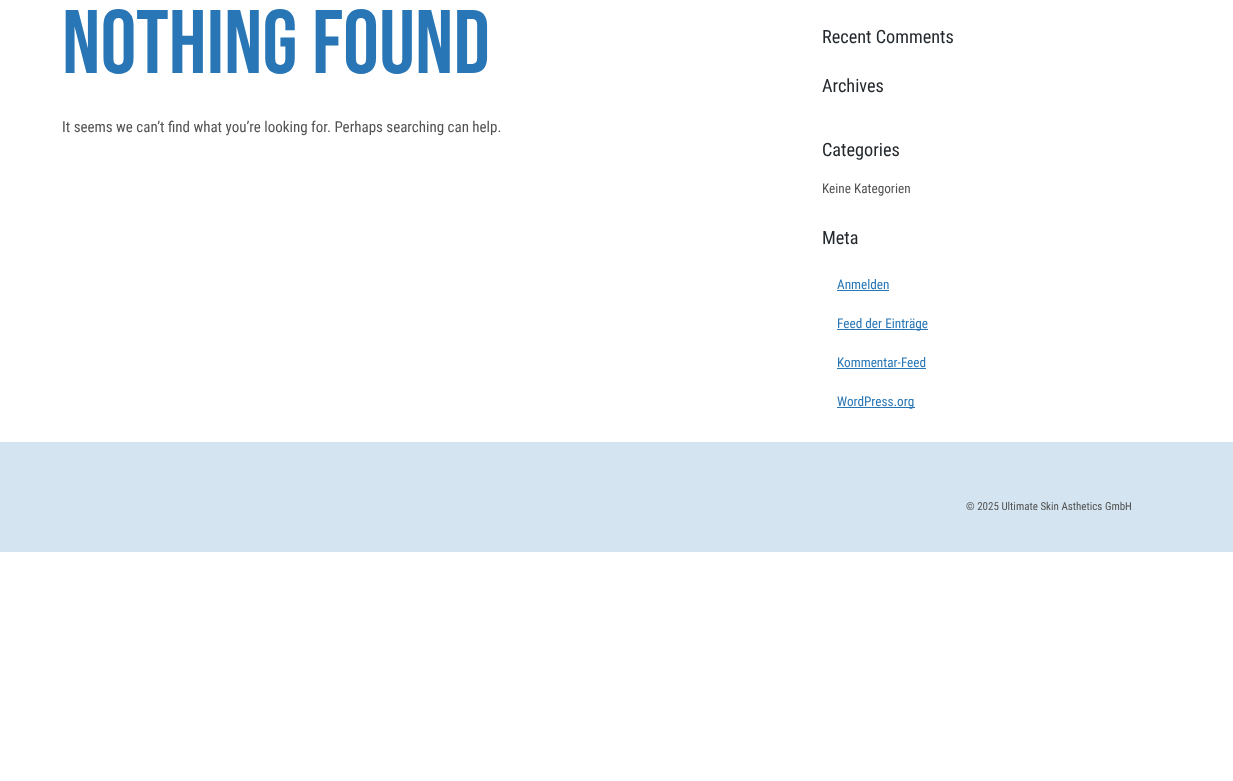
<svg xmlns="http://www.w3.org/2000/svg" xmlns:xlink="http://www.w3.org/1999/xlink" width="1233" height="781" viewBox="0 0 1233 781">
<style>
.cls-1{font:90px Bebas Neue;fill:#2876b5}
.cls-2{font:15px Roboto Condensed;fill:#525252}
.cls-3{font:18.25px Roboto Condensed;fill:#24292e}
.cls-4{font:13.25px Roboto Condensed;fill:#525252}
.cls-5{font:13.25px Roboto Condensed;fill:#2876b5}
.cls-6{font:11px Roboto Condensed;fill:#525252}
</style>
<rect width="100%" height="100%" fill="#ffffff"/>
<rect fill="#2876b5" x="837" y="290" width="52" height="1"/>
<rect fill="#2876b5" x="837" y="329" width="91" height="1"/>
<rect fill="#2876b5" x="837" y="368" width="89" height="1"/>
<rect fill="#2876b5" x="837" y="407" width="78" height="1"/>
<rect fill="#d4e4f0" x="0" y="442" width="1233" height="110"/>
<text class="cls-1" x="62" y="73">NOTHING FOUND</text>
<text class="cls-2" x="62" y="132">It seems we can’t find what you’re looking for. Perhaps searching can help.</text>
<text class="cls-3" x="822" y="43">Recent Comments</text>
<text class="cls-3" x="822" y="92">Archives</text>
<text class="cls-3" x="822" y="156">Categories</text>
<text class="cls-4" x="822" y="193">Keine Kategorien</text>
<text class="cls-3" x="822" y="244">Meta</text>
<text class="cls-5" x="837" y="289">Anmelden</text>
<text class="cls-5" x="837" y="328">Feed der Einträge</text>
<text class="cls-5" x="837" y="367">Kommentar-Feed</text>
<text class="cls-5" x="837" y="406">WordPress.org</text>
<text class="cls-6" x="966" y="510">© 2025 Ultimate Skin Asthetics GmbH</text>
</svg>
